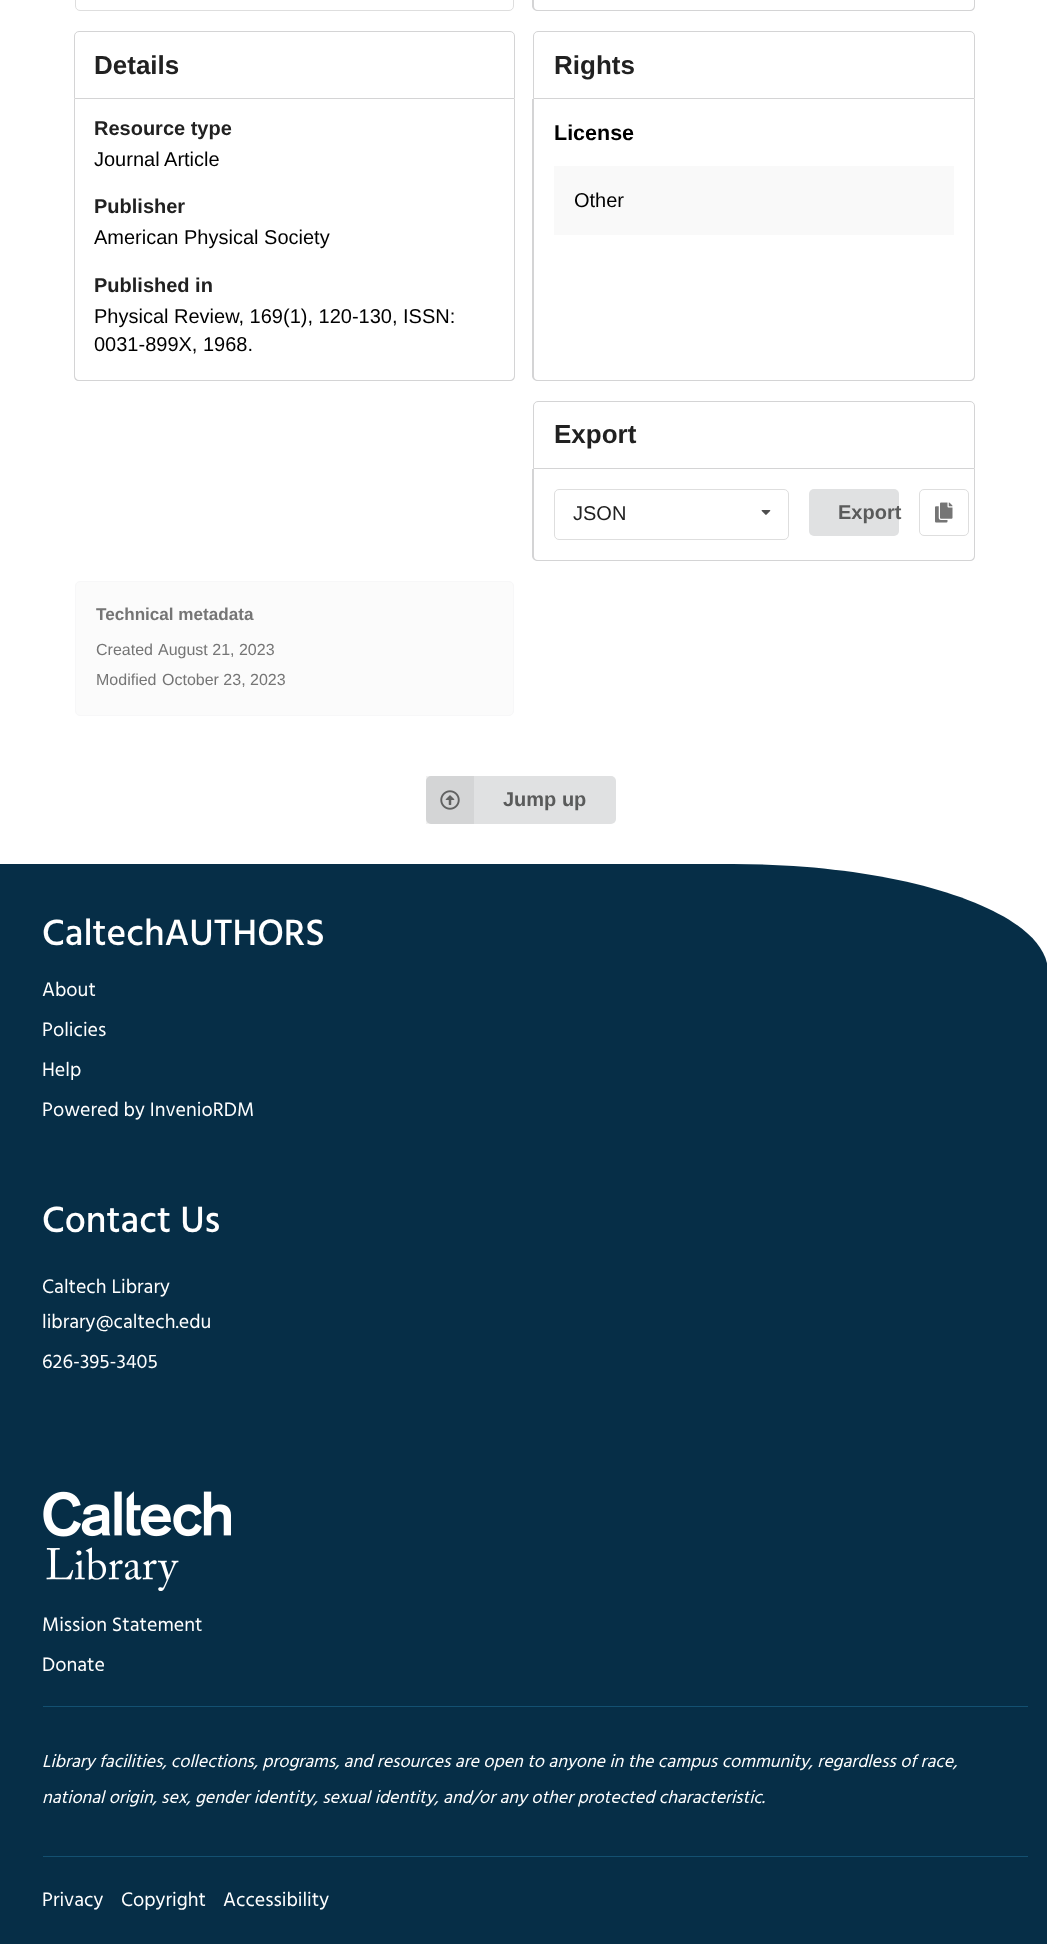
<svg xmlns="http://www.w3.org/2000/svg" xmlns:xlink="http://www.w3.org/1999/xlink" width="1047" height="1944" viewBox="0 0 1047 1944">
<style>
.cls-1{font:bold 26px Liberation Sans;fill:#212121}
.cls-2{font:bold 20px Liberation Sans;fill:#212121}
.cls-3{font:20px Liberation Sans;fill:#000000}
.cls-4{font:bold 21.5px Liberation Sans;fill:#000000}
.cls-5{font:20px Liberation Sans;fill:#212121}
.cls-6{font:bold 20px Liberation Sans;fill:#5a5b5b}
.cls-7{font:bold 17.1px Liberation Sans;fill:#757575}
.cls-8{font:16px Liberation Sans;fill:#757575}
.cls-9{font:500 37.5px Hind;fill:#ffffff}
.cls-10{font:20px Hind;fill:#ffffff}
.cls-11{font:italic 18px Hind;fill:#ffffff}
</style>
<rect width="100%" height="100%" fill="#ffffff"/>
<rect fill="none" stroke="#dedede" x="75.5" y="-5.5" width="438" height="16" rx="4.5"/>
<path fill="#d4d4d5" fill-rule="evenodd" d="M532-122H975V6C975 9 973 11 970 11H538C535 11 532 9 532 6ZM534-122H974V6C974 8 972 10 970 10H538C535 10 534 8 534 6Z"/>
<path fill="none" stroke="#d4d4d5" d="M79 31.5H510C512.5 31.5 514.5 33.5 514.5 36V98.5H74.5V36C74.5 33.5 76.5 31.5 79 31.5Z"/>
<path fill="#d4d4d5" fill-rule="evenodd" d="M74 99H515V376C515 379 513 381 510 381H79C76 381 74 379 74 376ZM75 99H514V376C514 378 512 380 510 380H79C77 380 75 378 75 376Z"/>
<path fill="none" stroke="#d4d4d5" d="M538 31.5H970C972.5 31.5 974.5 33.5 974.5 36V98.5H533.5V36C533.5 33.5 535.5 31.5 538 31.5Z"/>
<path fill="#d4d4d5" fill-rule="evenodd" d="M532 99H975V376C975 379 973 381 970 381H538C535 381 532 379 532 376ZM534 99H974V376C974 378 972 380 970 380H538C535 380 534 378 534 376Z"/>
<rect fill="#f9f9f9" x="554" y="166" width="400" height="69"/>
<path fill="none" stroke="#d4d4d5" d="M538 401.5H970C972.5 401.5 974.5 403.5 974.5 406V468.5H533.5V406C533.5 403.5 535.5 401.5 538 401.5Z"/>
<path fill="#d4d4d5" fill-rule="evenodd" d="M532 469H975V556C975 559 973 561 970 561H538C535 561 532 559 532 556ZM534 469H974V556C974 558 972 560 970 560H538C535 560 534 558 534 556Z"/>
<rect fill="none" stroke="#dedede" x="554.5" y="489.5" width="234" height="50" rx="4.5"/>
<image xlink:href="image0.png" x="761" y="510" width="10" height="5"/>
<rect fill="#e0e1e2" x="809" y="489" width="90" height="47" rx="5"/>
<rect fill="none" stroke="#dedede" x="919.5" y="489.5" width="49" height="46" rx="4.5"/>
<image xlink:href="image1.png" x="935" y="502" width="18" height="21"/>
<rect fill="#fbfbfb" stroke="#f7f7f8" x="75.5" y="581.5" width="438" height="134" rx="4.5"/>
<rect fill="#e0e1e2" x="426" y="776" width="190" height="48" rx="5"/>
<rect fill="#000000" fill-opacity="0.05" x="426" y="776" width="48" height="48"/>
<image xlink:href="image2.png" x="440" y="790" width="20" height="20"/>
<path fill="#062e47" d="M0 864H733C907 864 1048 912 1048 972V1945H0Z"/>
<image xlink:href="image3.png" x="43" y="1491" width="188" height="100"/>
<rect fill="#135071" x="43" y="1706" width="985" height="1"/>
<rect fill="#135071" x="43" y="1856" width="985" height="1"/>
<text class="cls-1" x="94" y="74">Details</text>
<text class="cls-2" x="94" y="135">Resource type</text>
<text class="cls-3" x="94" y="166">Journal Article</text>
<text class="cls-2" x="94" y="213">Publisher</text>
<text class="cls-3" x="94" y="244">American Physical Society</text>
<text class="cls-2" x="94" y="292">Published in</text>
<text class="cls-3"><tspan x="94" y="323">Physical Review, 169(1), 120-130, ISSN:</tspan><tspan x="94" y="351">0031-899X, 1968.</tspan></text>
<text class="cls-1" x="554" y="74">Rights</text>
<text class="cls-4" x="554" y="140">License</text>
<text class="cls-3" x="574" y="207">Other</text>
<text class="cls-1" x="554" y="443">Export</text>
<text class="cls-5" x="573" y="520">JSON</text>
<text class="cls-6" x="838" y="519">Export</text>
<text class="cls-7" x="96" y="620">Technical metadata</text>
<text class="cls-8" x="96" y="655">Created</text>
<text class="cls-8" x="158" y="655">August 21, 2023</text>
<text class="cls-8" x="96" y="685">Modified</text>
<text class="cls-8" x="162" y="685">October 23, 2023</text>
<text class="cls-6" x="503" y="806">Jump up</text>
<text class="cls-9" x="42" y="945">CaltechAUTHORS</text>
<text class="cls-10" x="42" y="996">About</text>
<text class="cls-10" x="42" y="1036">Policies</text>
<text class="cls-10" x="42" y="1076">Help</text>
<text class="cls-10" x="42" y="1116">Powered by InvenioRDM</text>
<text class="cls-9" x="42" y="1232">Contact Us</text>
<text class="cls-10"><tspan x="42" y="1293">Caltech Library</tspan><tspan x="42" y="1328">library@caltech.edu</tspan></text>
<text class="cls-10" x="42" y="1368">626-395-3405</text>
<text class="cls-10" x="42" y="1631">Mission Statement</text>
<text class="cls-10" x="42" y="1671">Donate</text>
<text class="cls-11" x="42" y="1767">Library facilities, collections, programs, and resources are open to anyone in the campus community, regardless of race,</text>
<text class="cls-11" x="42" y="1803">national origin, sex, gender identity, sexual identity, and/or any other protected characteristic.</text>
<text class="cls-10" x="42" y="1906">Privacy</text>
<text class="cls-10" x="121" y="1906">Copyright</text>
<text class="cls-10" x="223" y="1906">Accessibility</text>
</svg>
